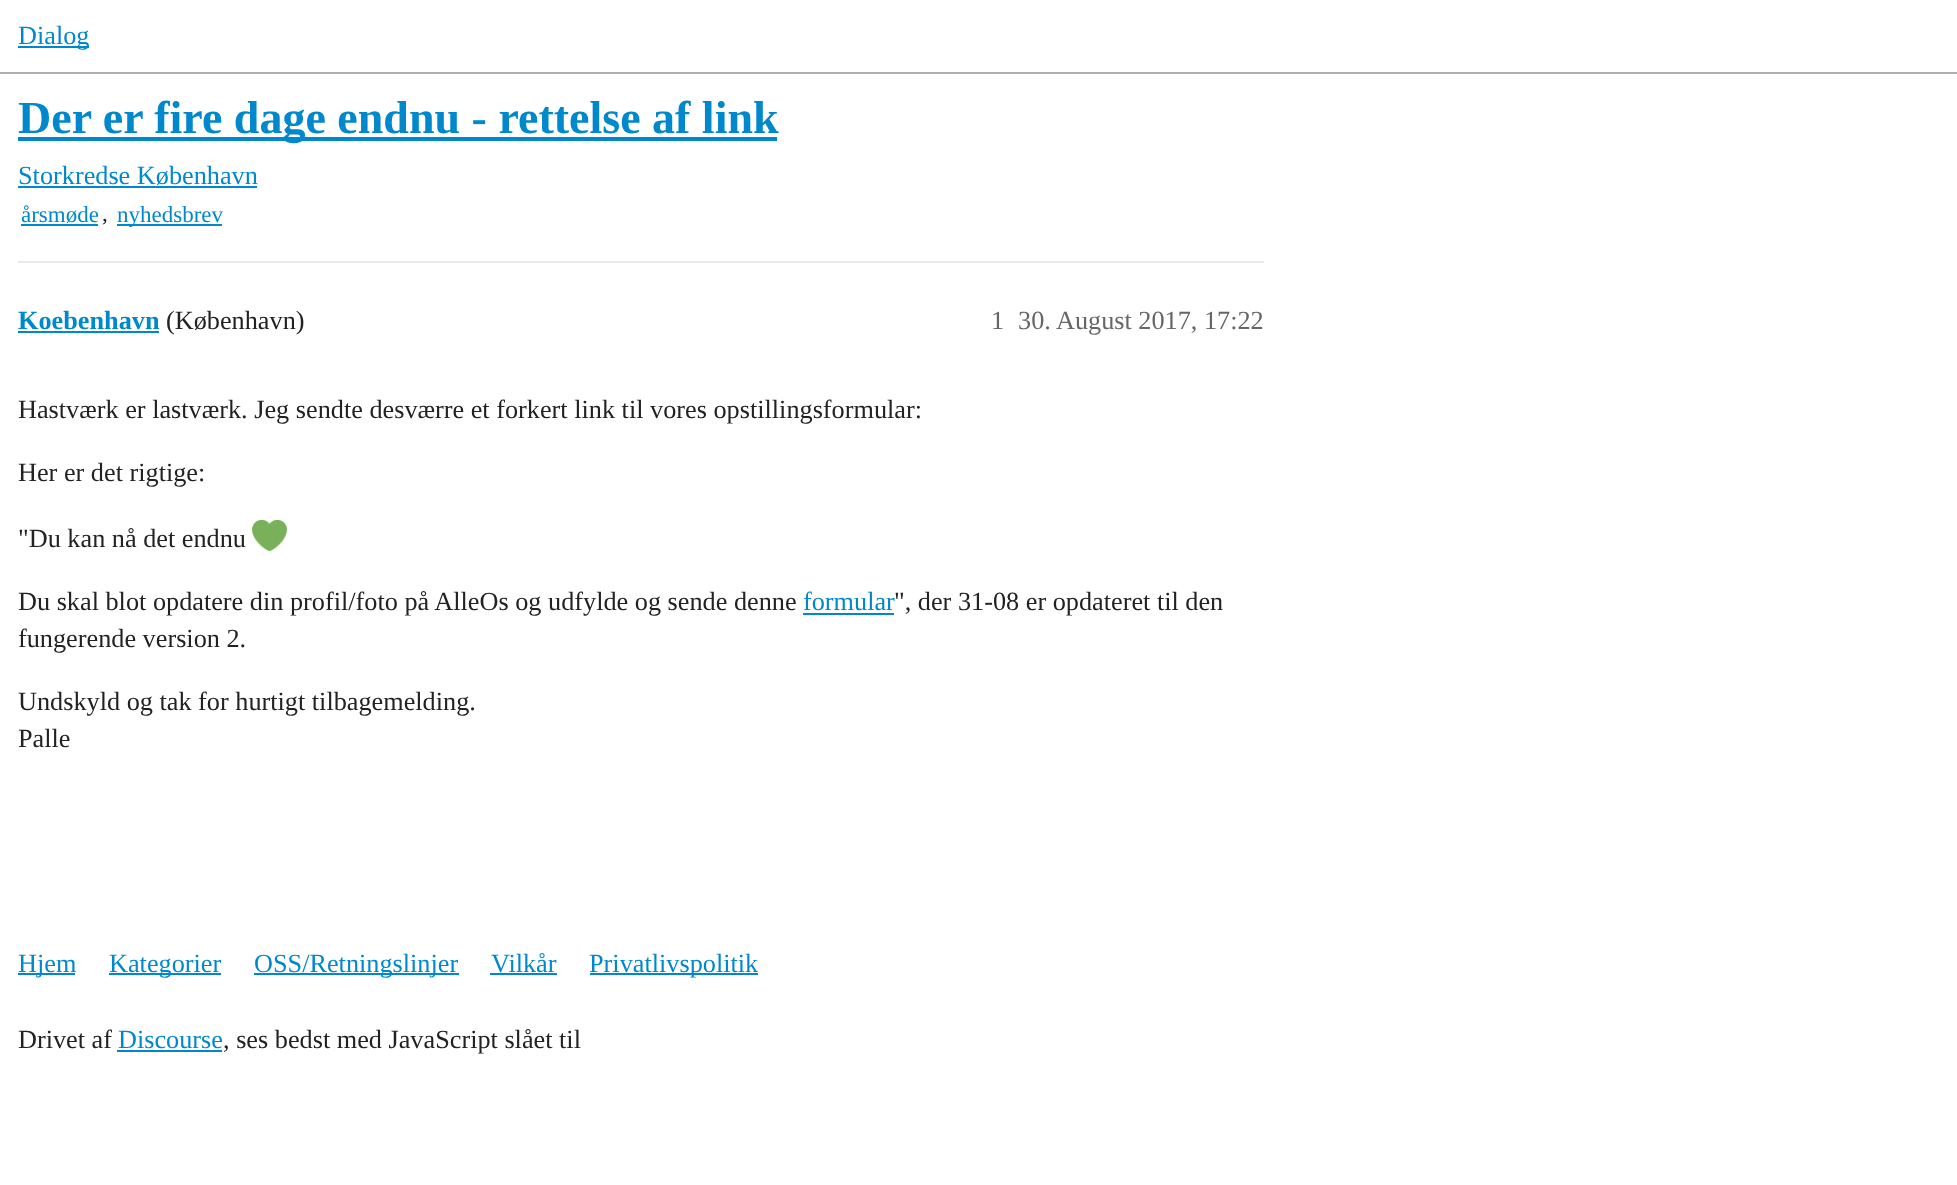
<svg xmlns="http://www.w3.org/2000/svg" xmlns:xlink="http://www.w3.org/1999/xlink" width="1957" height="1185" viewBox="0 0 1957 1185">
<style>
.cls-1{font:26.25px Liberation Serif;fill:#0088cc}
.cls-2{font:bold 46px Liberation Serif;fill:#0088cc}
.cls-3{font:23px Liberation Serif;fill:#0088cc}
.cls-4{font:23px Liberation Serif;fill:#222222}
.cls-5{font:bold 26.25px Liberation Serif;fill:#0088cc}
.cls-6{font:26.25px Liberation Serif;fill:#222222}
.cls-7{font:26.25px Liberation Serif;fill:#666666}
</style>
<rect width="100%" height="100%" fill="#ffffff"/>
<rect fill="#afafaf" x="0" y="72" width="1957" height="2"/>
<rect fill="#0088cc" x="18" y="46" width="71" height="2"/>
<rect fill="#0088cc" x="18" y="137" width="759" height="4"/>
<rect fill="#0088cc" x="18" y="186" width="239" height="2"/>
<rect fill="#0088cc" x="21" y="224" width="77" height="2"/>
<rect fill="#0088cc" x="117" y="224" width="105" height="2"/>
<rect fill="#e9e9e9" x="18" y="261" width="1246" height="2"/>
<rect fill="#0088cc" x="18" y="331" width="141" height="2"/>
<image xlink:href="image0.png" x="252" y="519" width="35" height="33"/>
<rect fill="#0088cc" x="803" y="613" width="91" height="2"/>
<rect fill="#0088cc" x="18" y="973" width="57" height="2"/>
<rect fill="#0088cc" x="109" y="973" width="112" height="2"/>
<rect fill="#0088cc" x="254" y="973" width="205" height="2"/>
<rect fill="#0088cc" x="490" y="973" width="67" height="2"/>
<rect fill="#0088cc" x="590" y="973" width="168" height="2"/>
<rect fill="#0088cc" x="117" y="1050" width="105" height="2"/>
<text class="cls-1" x="18" y="44">Dialog</text>
<text class="cls-2" x="18" y="133">Der er fire dage endnu - rettelse af link</text>
<text class="cls-1" x="18" y="184">Storkredse København</text>
<text class="cls-3" x="21" y="222">årsmøde</text>
<text class="cls-4" x="102" y="221">,</text>
<text class="cls-3" x="117" y="222">nyhedsbrev</text>
<text class="cls-5" x="18" y="329">Koebenhavn</text>
<text class="cls-6" x="166" y="329">(København)</text>
<text class="cls-7" x="991" y="329">1</text>
<text class="cls-7" x="1018" y="329">30. August 2017, 17:22</text>
<text class="cls-6" x="18" y="418">Hastværk er lastværk. Jeg sendte desværre et forkert link til vores opstillingsformular:</text>
<text class="cls-6" x="18" y="481">Her er det rigtige:</text>
<text class="cls-6" x="18" y="547">"Du kan nå det endnu</text>
<text class="cls-6" x="18" y="610">Du skal blot opdatere din profil/foto på AlleOs og udfylde og sende denne</text>
<text class="cls-1" x="803" y="610">formular</text>
<text class="cls-6" x="894" y="610">", der 31-08 er opdateret til den</text>
<text class="cls-6" x="18" y="647">fungerende version 2.</text>
<text class="cls-6"><tspan x="18" y="710">Undskyld og tak for hurtigt tilbagemelding.</tspan><tspan x="18" y="747">Palle</tspan></text>
<text class="cls-1" x="18" y="972">Hjem</text>
<text class="cls-1" x="109" y="972">Kategorier</text>
<text class="cls-1" x="254" y="972">OSS/Retningslinjer</text>
<text class="cls-1" x="491" y="972">Vilkår</text>
<text class="cls-1" x="589" y="972">Privatlivspolitik</text>
<text class="cls-6" x="18" y="1048">Drivet af</text>
<text class="cls-1" x="118" y="1048">Discourse</text>
<text class="cls-6" x="223" y="1048">, ses bedst med JavaScript slået til</text>
</svg>
